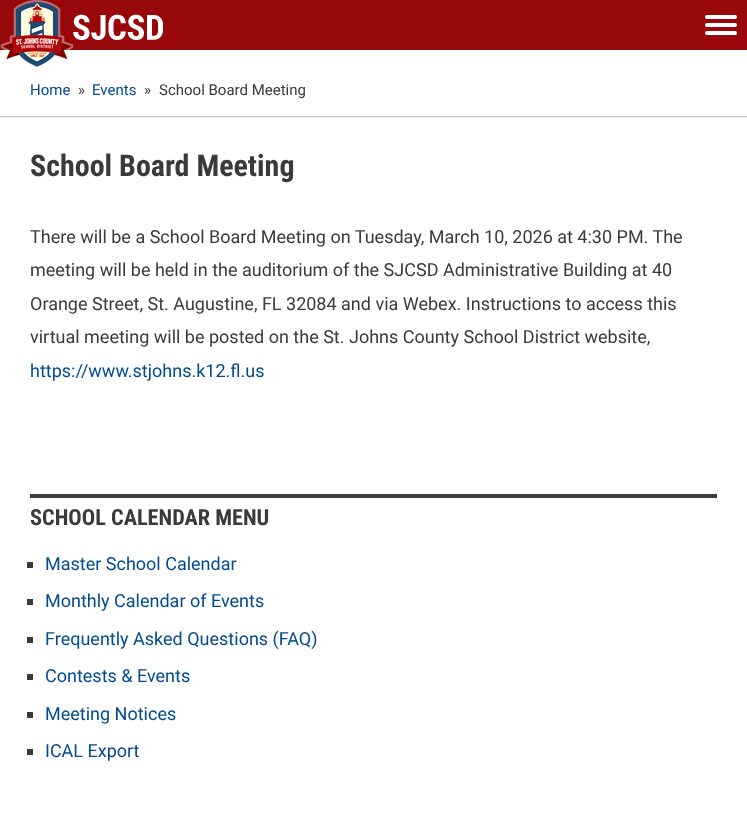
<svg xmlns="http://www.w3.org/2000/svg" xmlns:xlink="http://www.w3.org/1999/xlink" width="747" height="814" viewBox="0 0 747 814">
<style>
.cls-1{font:15px Roboto;fill:#004a8f}
.cls-2{font:15px Roboto;fill:#3a3a3a}
.cls-3{font:bold 30px Roboto Condensed;fill:#3a3a3a}
.cls-4{font:18px Roboto;fill:#3a3a3a}
.cls-5{font:18px Roboto;fill:#004a8f}
.cls-6{font:bold 22.25px Roboto Condensed;fill:#3a3a3a}
</style>
<rect width="100%" height="100%" fill="#98080b"/>
<rect fill="#ffffff" x="0" y="50" width="747" height="66"/>
<image xlink:href="image0.png" x="0" y="0" width="163" height="67"/>
<rect fill="#ffffff" x="705" y="15" width="32" height="4" rx="2"/>
<rect fill="#ffffff" x="705" y="23" width="32" height="4" rx="2"/>
<rect fill="#ffffff" x="705" y="31" width="32" height="4" rx="2"/>
<rect fill="#eaeaea" x="0" y="117" width="747" height="1"/>
<rect fill="#cccccc" x="0" y="116" width="747" height="1"/>
<rect fill="#ffffff" x="0" y="118" width="747" height="696"/>
<rect fill="#3a3a3a" x="30" y="494" width="687" height="4"/>
<rect fill="#3a3a3a" x="27" y="562" width="6" height="6"/>
<rect fill="#3a3a3a" x="27" y="599" width="6" height="6"/>
<rect fill="#3a3a3a" x="27" y="637" width="6" height="6"/>
<rect fill="#3a3a3a" x="27" y="674" width="6" height="6"/>
<rect fill="#3a3a3a" x="27" y="712" width="6" height="6"/>
<rect fill="#3a3a3a" x="27" y="749" width="6" height="6"/>
<text class="cls-1" x="30" y="95">Home</text>
<text class="cls-2" x="78" y="95">»</text>
<text class="cls-1" x="92" y="95">Events</text>
<text class="cls-2" x="144" y="95">»</text>
<text class="cls-2" x="159" y="95">School Board Meeting</text>
<text class="cls-3" x="30" y="176">School Board Meeting</text>
<text class="cls-4"><tspan x="30" y="243">There will be a School Board Meeting on Tuesday, March 10, 2026 at 4:30 PM. The</tspan><tspan x="30" y="276">meeting will be held in the auditorium of the SJCSD Administrative Building at 40</tspan><tspan x="30" y="310">Orange Street, St. Augustine, FL 32084 and via Webex. Instructions to access this</tspan><tspan x="30" y="343">virtual meeting will be posted on the St. Johns County School District website,</tspan></text>
<text class="cls-5" x="30" y="377">https://www.stjohns.k12.fl.us</text>
<text class="cls-6" x="30" y="525">SCHOOL CALENDAR MENU</text>
<text class="cls-5" x="45" y="570">Master School Calendar</text>
<text class="cls-5" x="45" y="607">Monthly Calendar of Events</text>
<text class="cls-5" x="45" y="645">Frequently Asked Questions (FAQ)</text>
<text class="cls-5" x="45" y="682">Contests &amp; Events</text>
<text class="cls-5" x="45" y="720">Meeting Notices</text>
<text class="cls-5" x="45" y="757">ICAL Export</text>
</svg>
